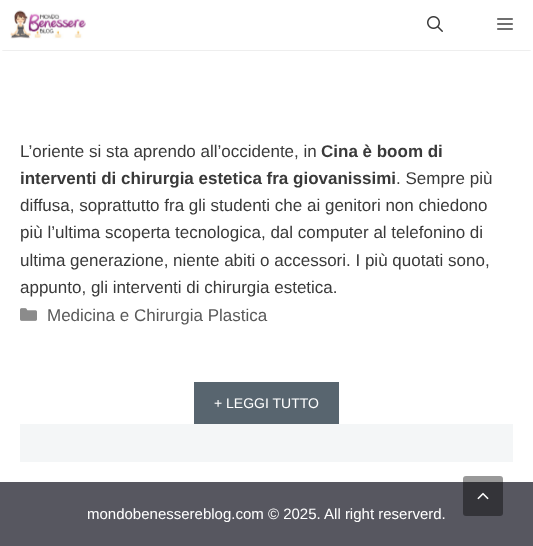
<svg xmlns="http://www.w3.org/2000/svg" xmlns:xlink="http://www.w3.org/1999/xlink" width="533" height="546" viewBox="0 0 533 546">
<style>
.cls-1{font:17px Liberation Sans;fill:#3a3a3a}
.cls-2{font:bold 17px Liberation Sans;fill:#3a3a3a}
.cls-3{font:17px Liberation Sans;fill:#595959}
.cls-4{font:14px Liberation Sans;fill:#ffffff}
.cls-5{font:15px Liberation Sans;fill:#ffffff}
</style>
<defs>
<clipPath id="clip1"><rect x="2" y="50" width="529" height="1"/></clipPath>
</defs>
<rect width="100%" height="100%" fill="#ffffff"/>
<g clip-path="url(#clip1)">
<rect fill="#000000" fill-opacity="0.2" filter="blur(1px)" x="2" y="4" width="529" height="46"/>
</g>
<image xlink:href="image0.png" x="10" y="10" width="76" height="29"/>
<image xlink:href="image1.png" x="427" y="16" width="16" height="16"/>
<image xlink:href="image2.png" x="497" y="18" width="16" height="12"/>
<image xlink:href="image3.png" x="20" y="308" width="17" height="13"/>
<rect fill="#58656f" x="194" y="382" width="145" height="42"/>
<rect fill="#f4f6f7" x="20" y="424" width="493" height="38"/>
<rect fill="#575760" x="0" y="482" width="533" height="64"/>
<rect fill="#000000" fill-opacity="0.4" x="463" y="476" width="40" height="40" rx="3"/>
<image xlink:href="image4.png" x="477" y="492" width="12" height="8"/>
<text class="cls-1" x="20" y="157">L’oriente si sta aprendo all’occidente, in</text>
<text class="cls-2" x="321" y="157">Cina è boom di</text>
<text class="cls-2" x="20" y="184">interventi di chirurgia estetica fra giovanissimi</text>
<text class="cls-1" x="396" y="184">. Sempre più</text>
<text class="cls-1"><tspan x="20" y="211">diffusa, soprattutto fra gli studenti che ai genitori non chiedono</tspan><tspan x="20" y="238">più l’ultima scoperta tecnologica, dal computer al telefonino di</tspan><tspan x="20" y="266">ultima generazione, niente abiti o accessori. I più quotati sono,</tspan><tspan x="20" y="293">appunto, gli interventi di chirurgia estetica.</tspan></text>
<text class="cls-3" x="47" y="321">Medicina e Chirurgia Plastica</text>
<text class="cls-4" x="214" y="408">+ LEGGI TUTTO</text>
<text class="cls-5" x="87" y="519">mondobenessereblog.com © 2025. All right reserverd.</text>
</svg>
